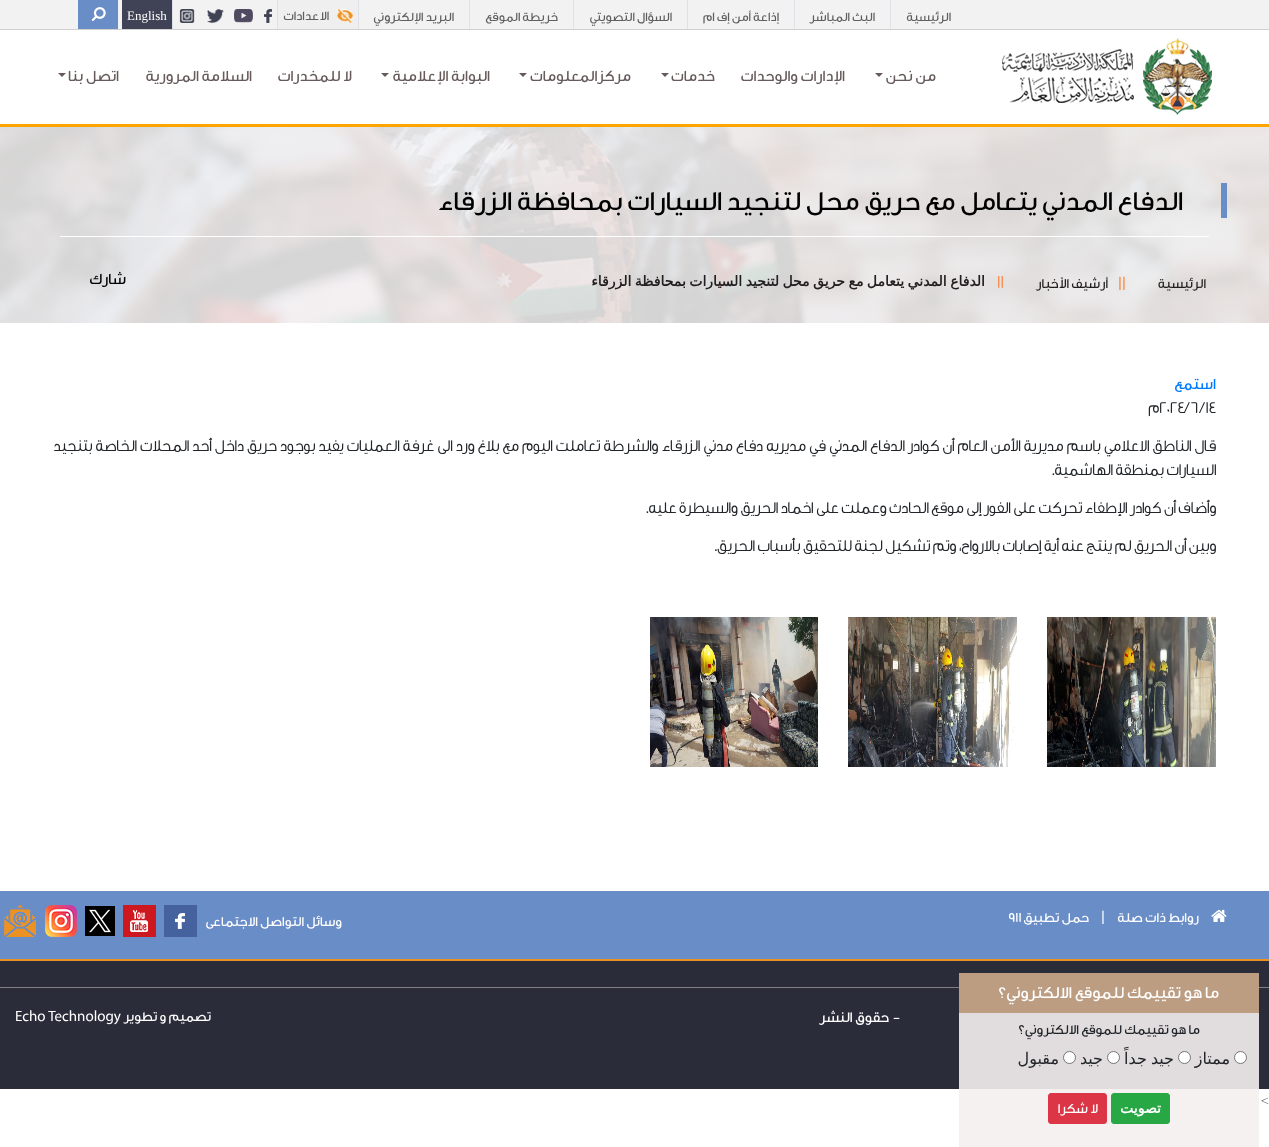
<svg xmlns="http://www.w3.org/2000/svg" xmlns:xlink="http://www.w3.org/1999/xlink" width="1269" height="1147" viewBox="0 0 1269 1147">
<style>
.cls-1{font:500 13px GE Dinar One;direction:rtl;fill:#5f5f5f}
.cls-2{font:13px Liberation Serif;fill:#ffffff}
.cls-3{font:500 16px GE Dinar One;direction:rtl;fill:#665a5a}
.cls-4{font:500 28px GE Dinar One;direction:rtl;fill:#000000}
.cls-5{font:500 14px GE Dinar One;direction:rtl;fill:#231f20}
.cls-6{font:16px Roboto;fill:#fa7f39}
.cls-7{font:600 14px Roboto;fill:#fa7f39}
.cls-8{font:bold 14px DejaVu Sans;direction:rtl;fill:#231f20}
.cls-9{font:500 16px GE Dinar One;direction:rtl;fill:#000000}
.cls-10{font:500 16px GE Dinar One;direction:rtl;fill:#007bff}
.cls-11{font:bold 16px GE Dinar One;fill:#212529}
.cls-12{font:bold 16px GE Dinar One;direction:rtl;fill:#212529}
.cls-13{font:500 14px GE Dinar One;direction:rtl;fill:#ffffff}
.cls-14{font:16px Roboto;fill:#ffffff}
.cls-15{font:500 14px GE Dinar One;fill:#ffffff}
.cls-16{font:500 17px GE Dinar One;direction:rtl;fill:#ffffff}
.cls-17{font:500 14px GE Dinar One;direction:rtl;fill:#212529}
.cls-18{font:16px DejaVu Sans;direction:rtl;fill:#212529}
.cls-19{font:bold 14px DejaVu Sans;direction:rtl;fill:#ffffff}
.cls-20{font:500 15px GE Dinar One;fill:#ffffff}
.cls-21{font:500 15px GE Dinar One;direction:rtl;fill:#ffffff}
.cls-22{font:15px Myriad;fill:#ffffff}
.cls-23{font:100 16px Roboto;fill:#212529}
</style>
<rect width="100%" height="100%" fill="#ffffff"/>
<rect fill="#f2f2f2" x="0" y="0" width="1269" height="29"/>
<rect fill="#d0d0d0" x="0" y="29" width="1269" height="1"/>
<rect fill="#dee2e6" x="890" y="0" width="1" height="29"/>
<rect fill="#dee2e6" x="794" y="0" width="1" height="29"/>
<rect fill="#dee2e6" x="687" y="0" width="1" height="29"/>
<rect fill="#dee2e6" x="573" y="0" width="1" height="29"/>
<rect fill="#dee2e6" x="469" y="0" width="1" height="29"/>
<rect fill="#dee2e6" x="358" y="0" width="1" height="29"/>
<rect fill="#dee2e6" x="277" y="0" width="1" height="29"/>
<rect fill="#efefef" x="278" y="0" width="80" height="29"/>
<image xlink:href="image0.png" x="337" y="9" width="16" height="14"/>
<rect fill="#dee2e6" x="172" y="0" width="1" height="29"/>
<image xlink:href="image1.png" x="264" y="9" width="8" height="14"/>
<image xlink:href="image2.png" x="234" y="9" width="19" height="14"/>
<image xlink:href="image3.png" x="206" y="9" width="18" height="14"/>
<image xlink:href="image4.png" x="179" y="9" width="16" height="14"/>
<rect fill="#404356" x="122" y="0" width="50" height="29"/>
<rect fill="#698dc7" x="78" y="0" width="40" height="29"/>
<image xlink:href="image5.png" x="91" y="7" width="15" height="14"/>
<image xlink:href="image6.png" x="1002" y="38" width="210" height="77"/>
<path fill="#665a5a" d="M875 73H883L879 77Z"/>
<path fill="#665a5a" d="M661 73H669L665 77Z"/>
<path fill="#665a5a" d="M519 73H527L523 77Z"/>
<path fill="#665a5a" d="M381 73H389L385 77Z"/>
<path fill="#665a5a" d="M58 73H66L62 77Z"/>
<image xlink:href="image7.png" x="0" y="127" width="1269" height="196"/>
<rect fill="#ffa500" x="0" y="124" width="1269" height="3"/>
<rect fill="#698dc7" x="1221" y="183" width="6" height="35"/>
<rect fill="#ffffff" x="60" y="236" width="1149" height="1"/>
<image xlink:href="image8.png" x="1047" y="617" width="169" height="150"/>
<image xlink:href="image9.png" x="848" y="617" width="169" height="150"/>
<image xlink:href="image10.png" x="650" y="617" width="168" height="150"/>
<rect fill="#698dc7" x="0" y="891" width="1269" height="68"/>
<image xlink:href="image11.png" x="1211" y="909" width="16" height="13"/>
<image xlink:href="image12.png" x="164" y="905" width="33" height="32"/>
<image xlink:href="image13.png" x="123" y="905" width="33" height="32"/>
<image xlink:href="image14.png" x="85" y="906" width="30" height="30"/>
<image xlink:href="image15.png" x="45" y="905" width="32" height="32"/>
<image xlink:href="image16.png" x="4" y="905" width="32" height="32"/>
<rect fill="#2a2c39" x="0" y="961" width="1269" height="26"/>
<rect fill="#ec9224" x="0" y="959" width="1269" height="2"/>
<rect fill="#2a2c39" x="0" y="988" width="1269" height="101"/>
<rect fill="#f5efef" fill-opacity="0.9" x="959" y="1013" width="300" height="134"/>
<rect fill="#808080" x="0" y="987" width="1269" height="1"/>
<rect fill="#bc9d82" x="959" y="973" width="300" height="40"/>
<circle fill="#ffffff" stroke="#767676" cx="1240.5" cy="1057.5" r="6"/>
<circle fill="#ffffff" stroke="#767676" cx="1184.5" cy="1057.5" r="6"/>
<circle fill="#ffffff" stroke="#767676" cx="1113.5" cy="1057.5" r="6"/>
<circle fill="#ffffff" stroke="#767676" cx="1069.5" cy="1057.5" r="6"/>
<rect fill="#28a745" stroke="#28a745" x="1111.5" y="1093.5" width="58" height="30" rx="2.5"/>
<rect fill="#dc3545" stroke="#dc3545" x="1048.5" y="1093.5" width="58" height="30" rx="2.5"/>
<text class="cls-1" x="951" y="21">الرئيسية</text>
<text class="cls-1" x="875" y="21">البث المباشر</text>
<text class="cls-1" x="779" y="21">إذاعة أمن إف ام</text>
<text class="cls-1" x="672" y="21">السؤال التصويتي</text>
<text class="cls-1" x="558" y="21">خريطة الموقع</text>
<text class="cls-1" x="454" y="21">البريد الإلكتروني</text>
<text class="cls-1" x="329" y="20">الاعدادات</text>
<text class="cls-2" x="127" y="20">English</text>
<text class="cls-3" x="936" y="81">من نحن</text>
<text class="cls-3" x="845" y="81">الإدارات والوحدات</text>
<text class="cls-3" x="715" y="81">خدمات</text>
<text class="cls-3" x="631" y="81">مركزالمعلومات</text>
<text class="cls-3" x="490" y="81">البوابة الإعلامية</text>
<text class="cls-3" x="352" y="81">لا للمخدرات</text>
<text class="cls-3" x="252" y="81">السلامة المرورية</text>
<text class="cls-3" x="119" y="81">اتصل بنا</text>
<text class="cls-4" x="1183" y="210">الدفاع المدني يتعامل مع حريق محل لتنجيد السيارات بمحافظة الزرقاء</text>
<text class="cls-5" x="1206" y="288">الرئيسية</text>
<text class="cls-6" x="1118" y="288">||</text>
<text class="cls-5" x="1108" y="288">أرشيف الأخبار</text>
<text class="cls-7" x="997" y="286">||</text>
<text class="cls-8" x="985" y="286" word-spacing="-1">الدفاع المدني يتعامل مع حريق محل لتنجيد السيارات بمحافظة الزرقاء</text>
<text class="cls-9" x="126" y="284">شارك</text>
<text class="cls-10" x="1216" y="389">استمع</text>
<text class="cls-11" x="1159" y="413">2024/ 6 / 14</text>
<text class="cls-12" x="1159" y="413">م</text>
<text class="cls-12"><tspan x="1216" y="451" word-spacing="0.6">قال الناطق الاعلامي باسم مديرية الأمن العام أن كوادر الدفاع المدني في مديريه دفاع مدني الزرقاء والشرطة تعاملت اليوم مع بلاغ ورد الى غرفة العمليات يفيد بوجود حريق داخل أحد المحلات الخاصة بتنجيد</tspan><tspan x="1216" y="475">السيارات بمنطقة الهاشمية.</tspan></text>
<text class="cls-12" x="1216" y="513">وأضاف أن كوادر الإطفاء تحركت على الفور إلى موقع الحادث وعملت على اخماد الحريق والسيطرة عليه.</text>
<text class="cls-12" x="1216" y="551">وبين</text>
<text class="cls-12" x="1186" y="551">أن الحريق لم ينتج عنه أية إصابات بالارواح، وتم تشكيل لجنة للتحقيق بأسباب الحريق.</text>
<text class="cls-13" x="1199" y="922">روابط ذات صلة</text>
<text class="cls-14" x="1101" y="922">|</text>
<text class="cls-13" x="1089" y="922">حمل تطبيق</text>
<text class="cls-15" x="1008" y="922">911</text>
<text class="cls-13" x="342" y="926">وسائل التواصل الاجتماعى</text>
<text class="cls-16" x="1219" y="998">ما هو تقييمك للموقع الالكتروني؟</text>
<text class="cls-17" x="1200" y="1034">ما هو تقييمك للموقع الالكتروني؟</text>
<text class="cls-18" x="1230" y="1064">ممتاز</text>
<text class="cls-18" x="1174" y="1064" word-spacing="-1">جيد جداً</text>
<text class="cls-18" x="1103" y="1064">جيد</text>
<text class="cls-18" x="1059" y="1064">مقبول</text>
<text class="cls-19" x="1161" y="1113">تصويت</text>
<text class="cls-13" x="1098" y="1113">لا شكرا</text>
<text class="cls-20" x="893" y="1022">-</text>
<text class="cls-21" x="889" y="1022">حقوق النشر</text>
<text class="cls-13" x="211" y="1021">تصميم و تطوير</text>
<text class="cls-22" x="15" y="1021">Echo Technology</text>
<text class="cls-23" x="1261" y="1106">&lt;</text>
</svg>
